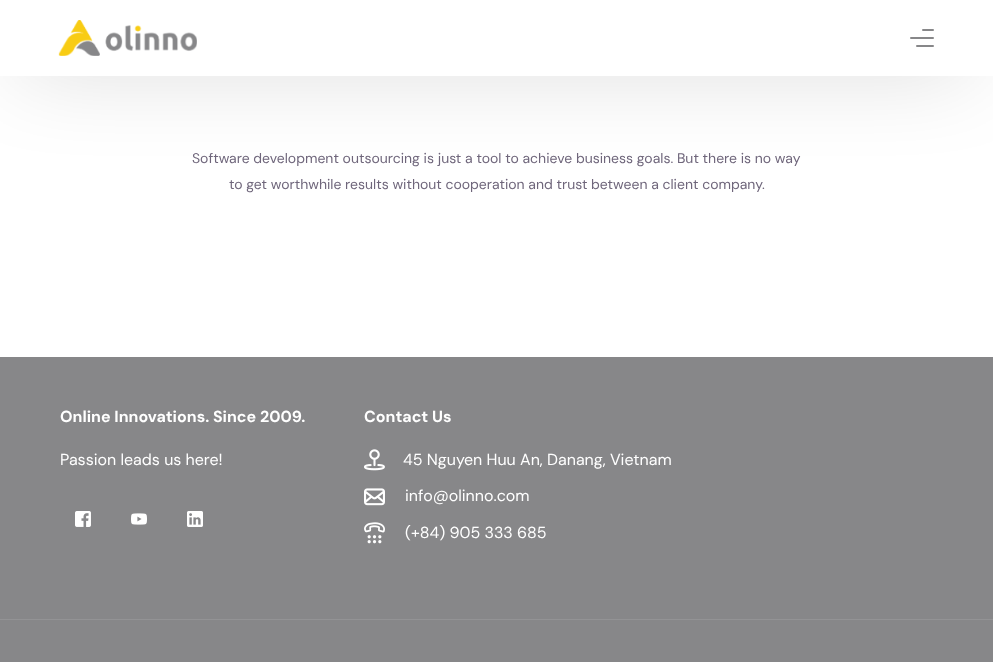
<svg xmlns="http://www.w3.org/2000/svg" xmlns:xlink="http://www.w3.org/1999/xlink" width="993" height="662" viewBox="0 0 993 662">
<style>
.cls-1{font:14px DM Sans;fill:#6f667b}
.cls-2{font:bold 16px DM Sans;fill:#ffffff}
.cls-3{font:16px DM Sans;fill:#ffffff}
</style>
<rect width="100%" height="100%" fill="#ffffff"/>
<rect fill="#000000" fill-opacity="0.25" filter="blur(45px)" x="18" y="23" width="953" height="36"/>
<rect fill="#ffffff" x="0" y="0" width="993" height="76"/>
<image xlink:href="image0.png" x="58" y="20" width="139" height="36"/>
<rect fill="#878789" x="922" y="29" width="12" height="2" rx="1"/>
<rect fill="#878789" x="910" y="37" width="24" height="2" rx="1"/>
<rect fill="#878789" x="916" y="45" width="18" height="2" rx="1"/>
<rect fill="#878789" x="0" y="357" width="993" height="262"/>
<image xlink:href="image1.png" x="75" y="511" width="16" height="16"/>
<image xlink:href="image2.png" x="131" y="513" width="16" height="12"/>
<image xlink:href="image3.png" x="187" y="511" width="16" height="16"/>
<image xlink:href="image4.png" x="364" y="449" width="21" height="22"/>
<image xlink:href="image5.png" x="364" y="488" width="21" height="18"/>
<image xlink:href="image6.png" x="364" y="522" width="21" height="22"/>
<rect fill="#878789" x="0" y="620" width="993" height="42"/>
<rect fill="#939395" x="0" y="619" width="993" height="1"/>
<text class="cls-1" x="192" y="163">Software development outsourcing is just a tool to achieve business goals. But there is no way</text>
<text class="cls-1" x="229" y="189">to get worthwhile results without cooperation and trust between a client company.</text>
<text class="cls-2" x="60" y="422">Online Innovations. Since 2009.</text>
<text class="cls-3" x="60" y="465">Passion leads us here!</text>
<text class="cls-2" x="364" y="422">Contact Us</text>
<text class="cls-3" x="403" y="465">45 Nguyen Huu An, Danang, Vietnam</text>
<text class="cls-3" x="405" y="501">info@olinno.com</text>
<text class="cls-3" x="405" y="538">(+84) 905 333 685</text>
</svg>
